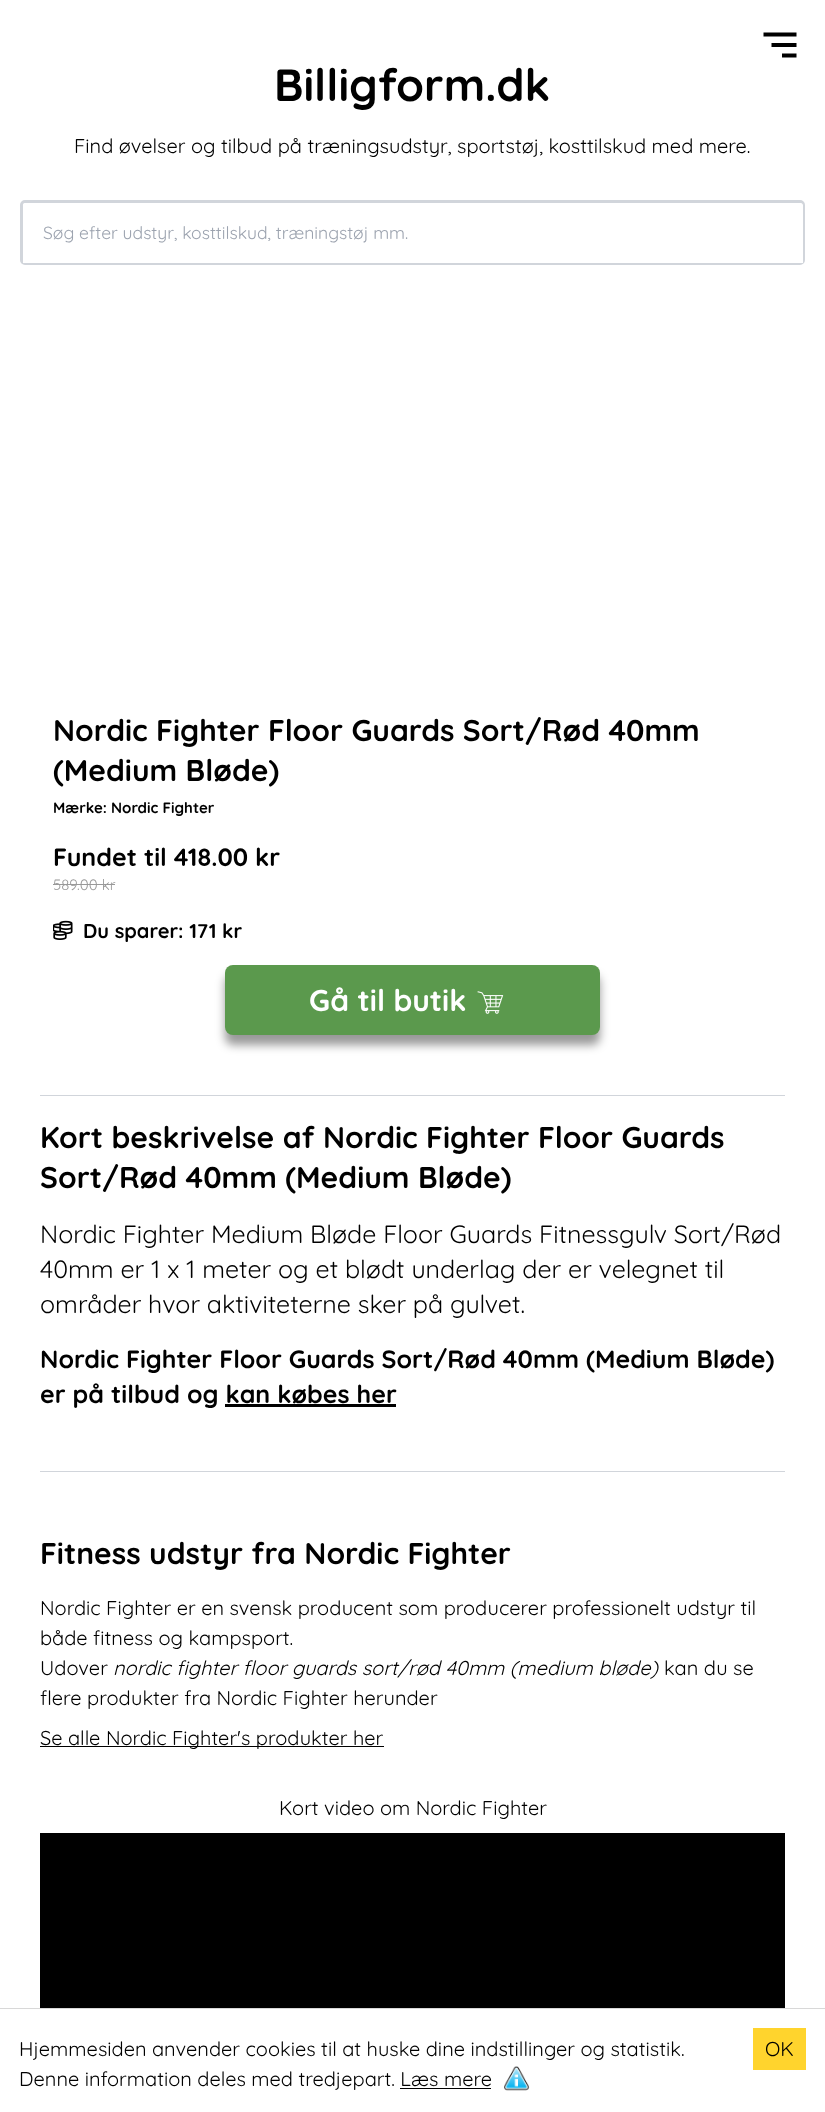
<svg xmlns="http://www.w3.org/2000/svg" xmlns:xlink="http://www.w3.org/1999/xlink" width="825" height="2112" viewBox="0 0 825 2112">
<style>
.cls-1{font:bold 45px Quicksand;fill:#000000}
.cls-2{font:20px Quicksand;fill:#000000}
.cls-3{font:17.5px Quicksand;fill:#9ca3af}
.cls-4{font:bold 30px Quicksand;fill:#000000}
.cls-5{font:bold 15px Quicksand;fill:#000000}
.cls-6{font:bold 25px Quicksand;fill:#000000}
.cls-7{font:15px Quicksand;fill:#999999}
.cls-8{font:bold 20px Quicksand;fill:#000000}
.cls-9{font:bold 30px Quicksand;fill:#ffffff}
.cls-10{font:25px Quicksand;fill:#000000}
.cls-11{font:italic 20px Quicksand;fill:#000000}
</style>
<rect width="100%" height="100%" fill="#ffffff"/>
<path fill="#000000" d="M763.5 32.5H796.5V36.5H763.5ZM771.5 43H796.5V47H771.5ZM782 53.5H796.5V57.5H782Z"/>
<rect fill="none" stroke="#d1d5db" stroke-width="3" x="21.5" y="201.5" width="782" height="62" rx="3.5"/>
<path fill="#ffffff" d="M25.5 203H800.5C802 203 803 204 803 205.5V263H23V205.5C23 204 24 203 25.5 203Z"/>
<rect fill="#999999" x="53" y="884" width="62" height="1"/>
<image xlink:href="image0.png" x="53" y="920" width="20" height="20"/>
<rect fill="#000000" fill-opacity="0.4" filter="blur(5px)" x="225" y="975" width="375" height="70" rx="8"/>
<rect fill="#5b994d" x="225" y="965" width="375" height="70" rx="8"/>
<image xlink:href="image1.png" x="477" y="991" width="27" height="23"/>
<rect fill="#d1d5db" x="40" y="1095" width="745" height="1"/>
<rect fill="#000000" x="225" y="1404" width="171" height="3"/>
<rect fill="#d1d5db" x="40" y="1471" width="745" height="1"/>
<rect fill="#000000" x="40" y="1746" width="344" height="1"/>
<rect fill="#000000" x="40" y="1833" width="745" height="175"/>
<rect fill="#d8d8d8" x="0" y="2008" width="825" height="1"/>
<image xlink:href="image2.png" x="504" y="2066" width="26" height="25"/>
<rect fill="#000000" x="400" y="2088" width="91" height="1"/>
<rect fill="#ffd42d" x="753" y="2028" width="53" height="42"/>
<text class="cls-1" x="274" y="101">Billigform.dk</text>
<text class="cls-2" x="74" y="153">Find øvelser og tilbud på træningsudstyr, sportstøj, kosttilskud med mere.</text>
<text class="cls-3" x="43" y="239">Søg efter udstyr, kosttilskud, træningstøj mm.</text>
<text class="cls-4"><tspan x="53" y="741">Nordic Fighter Floor Guards Sort/Rød 40mm</tspan><tspan x="53" y="781">(Medium Bløde)</tspan></text>
<text class="cls-5" x="53" y="813">Mærke: Nordic Fighter</text>
<text class="cls-6" x="53" y="866">Fundet til 418.00 kr</text>
<text class="cls-7" x="53" y="890">589.00 kr</text>
<text class="cls-8" x="83" y="938">Du sparer: 171 kr</text>
<text class="cls-9" x="309" y="1011">Gå til butik</text>
<text class="cls-4"><tspan x="40" y="1148">Kort beskrivelse af Nordic Fighter Floor Guards</tspan><tspan x="40" y="1188">Sort/Rød 40mm (Medium Bløde)</tspan></text>
<text class="cls-10"><tspan x="40" y="1243">Nordic Fighter Medium Bløde Floor Guards Fitnessgulv Sort/Rød</tspan><tspan x="40" y="1278">40mm er 1 x 1 meter og et blødt underlag der er velegnet til</tspan><tspan x="40" y="1313">områder hvor aktiviteterne sker på gulvet.</tspan></text>
<text class="cls-6"><tspan x="40" y="1368">Nordic Fighter Floor Guards Sort/Rød 40mm (Medium Bløde)</tspan><tspan x="40" y="1403">er på tilbud og kan købes her</tspan></text>
<text class="cls-4" x="40" y="1564">Fitness udstyr fra Nordic Fighter</text>
<text class="cls-2"><tspan x="40" y="1615">Nordic Fighter er en svensk producent som producerer professionelt udstyr til</tspan><tspan x="40" y="1645">både fitness og kampsport.</tspan><tspan x="40" y="1675">Udover</tspan></text>
<text class="cls-11" x="113" y="1675">nordic fighter floor guards sort/rød 40mm (medium bløde)</text>
<text class="cls-2" x="664" y="1675">kan du se</text>
<text class="cls-2" x="40" y="1705">flere produkter fra Nordic Fighter herunder</text>
<text class="cls-2" x="40" y="1745">Se alle Nordic Fighter's produkter her</text>
<text class="cls-2" x="279" y="1815">Kort video om Nordic Fighter</text>
<text class="cls-2"><tspan x="19" y="2056">Hjemmesiden anvender cookies til at huske dine indstillinger og statistik.</tspan><tspan x="19" y="2086">Denne information deles med tredjepart. Læs mere</tspan></text>
<text class="cls-2" x="765" y="2056">OK</text>
</svg>
